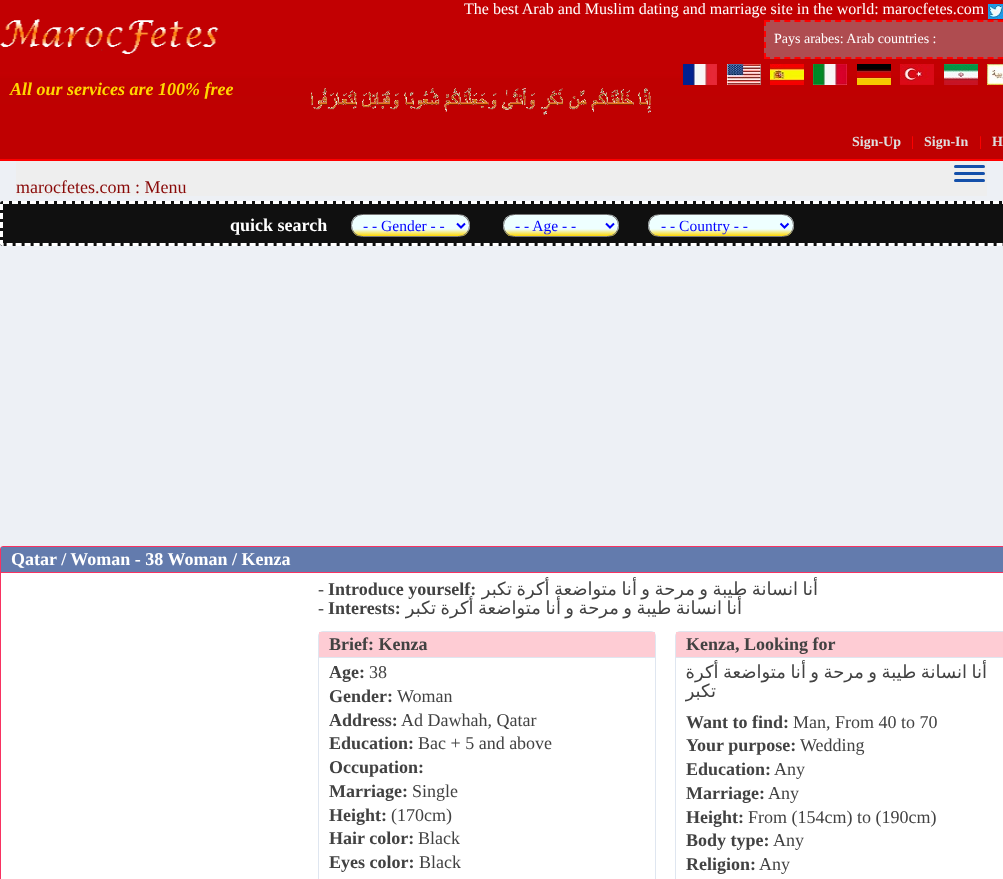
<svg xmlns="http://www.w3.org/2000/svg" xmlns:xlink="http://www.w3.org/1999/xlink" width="1003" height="879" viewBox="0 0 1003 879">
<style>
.cls-1{font:italic bold 18px Liberation Serif;fill:#ffd700}
.cls-2{font:16px Liberation Serif;fill:#ffffff}
.cls-3{font:14px Liberation Serif;fill:#ffffff}
.cls-4{font:bold 14px Liberation Serif;fill:#dedede}
.cls-5{font:bold 14px Liberation Serif;fill:#ff0000}
.cls-6{font:18px Liberation Serif;fill:#880807}
.cls-7{font:bold 18px Liberation Serif;fill:#ffffff}
.cls-8{font:15.5px Liberation Serif;fill:#0000ff}
.cls-9{font:18px Liberation Serif;fill:#424242}
.cls-10{font:bold 18px Liberation Serif;fill:#424242}
.cls-11{font:18px DejaVu Sans;direction:rtl;fill:#424242}
</style>
<defs>
<clipPath id="clip1"><rect x="351" y="214" width="119" height="23" rx="11.5"/></clipPath>
<linearGradient id="g1" gradientUnits="userSpaceOnUse" x1="411" y1="236" x2="411" y2="215"><stop offset="0" stop-color="#ffd700"/><stop offset="0.33" stop-color="#eeffff"/></linearGradient>
<clipPath id="clip2"><rect x="503" y="214" width="116" height="23" rx="11.5"/></clipPath>
<linearGradient id="g2" gradientUnits="userSpaceOnUse" x1="561" y1="236" x2="561" y2="215"><stop offset="0" stop-color="#ffd700"/><stop offset="0.33" stop-color="#eeffff"/></linearGradient>
<clipPath id="clip3"><rect x="648" y="214" width="146" height="23" rx="11.5"/></clipPath>
<linearGradient id="g3" gradientUnits="userSpaceOnUse" x1="721" y1="236" x2="721" y2="215"><stop offset="0" stop-color="#ffd700"/><stop offset="0.33" stop-color="#eeffff"/></linearGradient>
</defs>
<rect width="100%" height="100%" fill="#ffffff"/>
<image xlink:href="image0.png" x="0" y="0" width="1003" height="159"/>
<rect fill="#ff0000" x="0" y="159" width="1003" height="2"/>
<image xlink:href="image1.png" x="0" y="19" width="219" height="35"/>
<image xlink:href="image2.png" x="988" y="4" width="15" height="15"/>
<rect fill="#af4c50" x="764" y="20" width="239" height="39"/>
<path fill="none" stroke="#ff0000" stroke-width="2" stroke-dasharray="6 4.16" d="M764 21H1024"/>
<path fill="none" stroke="#ff0000" stroke-width="2" stroke-dasharray="6 4.16" d="M764 58H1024"/>
<path fill="none" stroke="#ff0000" stroke-width="2" stroke-dasharray="6 5" d="M765 20V59"/>
<image xlink:href="image3.png" x="683" y="64" width="34" height="21"/>
<image xlink:href="image4.png" x="727" y="64" width="34" height="21"/>
<image xlink:href="image5.png" x="770" y="64" width="34" height="21"/>
<image xlink:href="image6.png" x="813" y="64" width="34" height="21"/>
<image xlink:href="image7.png" x="857" y="64" width="34" height="21"/>
<image xlink:href="image8.png" x="900" y="64" width="34" height="21"/>
<image xlink:href="image9.png" x="944" y="64" width="34" height="21"/>
<image xlink:href="image10.png" x="987" y="64" width="16" height="21"/>
<image xlink:href="image11.png" x="311" y="88" width="340" height="27"/>
<rect fill="#edf0f5" x="0" y="161" width="1003" height="388"/>
<rect fill="#eeeeee" x="16" y="161" width="971" height="35"/>
<rect fill="#1450aa" x="954" y="172" width="31" height="3" rx="1.5"/>
<rect fill="#1450aa" x="954" y="165" width="31" height="3" rx="1.5"/>
<rect fill="#1450aa" x="954" y="179" width="31" height="3" rx="1.5"/>
<rect fill="#101010" x="0" y="201" width="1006" height="45" rx="3"/>
<path fill="none" stroke="#ffffff" stroke-width="3" stroke-dasharray="6 3" d="M3 202.5H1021L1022.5 203.5V243.5L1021 244.5H3L1.5 243.5V203.5Z"/>
<g clip-path="url(#clip1)">
<rect fill="url(#g1)" x="351" y="215" width="119" height="21"/>
</g>
<rect fill="none" stroke="#777777" x="351.5" y="214.5" width="118" height="22" rx="11"/>
<path fill="none" stroke="#0000ff" stroke-width="2" d="M457 223.5L461 227.5L465 223.5"/>
<g clip-path="url(#clip2)">
<rect fill="url(#g2)" x="503" y="215" width="116" height="21"/>
</g>
<rect fill="none" stroke="#777777" x="503.5" y="214.5" width="115" height="22" rx="11"/>
<path fill="none" stroke="#0000ff" stroke-width="2" d="M606 223.5L610 227.5L614 223.5"/>
<g clip-path="url(#clip3)">
<rect fill="url(#g3)" x="648" y="215" width="146" height="21"/>
</g>
<rect fill="none" stroke="#777777" x="648.5" y="214.5" width="145" height="22" rx="11"/>
<path fill="none" stroke="#0000ff" stroke-width="2" d="M780.5 223.5L784.5 227.5L788.5 223.5"/>
<rect fill="#ffffff" stroke="#f83261" x="0.5" y="546.5" width="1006" height="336" rx="2.5"/>
<rect fill="#637bad" x="1" y="547" width="1002" height="25"/>
<rect fill="#f83261" x="1" y="572" width="1002" height="1"/>
<rect fill="none" stroke="#dfe6f0" x="318.5" y="631.5" width="337" height="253" rx="4.5"/>
<rect fill="#feccd4" x="319" y="632" width="336" height="25"/>
<rect fill="#dfe6f0" x="319" y="657" width="336" height="1"/>
<rect fill="none" stroke="#dfe6f0" x="675.5" y="631.5" width="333" height="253" rx="4.5"/>
<rect fill="#feccd4" x="676" y="632" width="327" height="25"/>
<rect fill="#dfe6f0" x="676" y="657" width="327" height="1"/>
<text class="cls-1" x="10" y="95">All our services are 100% free</text>
<text class="cls-2" x="464" y="14">The best Arab and Muslim dating and marriage site in the world: marocfetes.com</text>
<text class="cls-3" x="774" y="43">Pays arabes: Arab countries :</text>
<text class="cls-4" x="852" y="146">Sign-Up</text>
<text class="cls-5" x="911" y="146">|</text>
<text class="cls-4" x="924" y="146">Sign-In</text>
<text class="cls-5" x="979" y="146">|</text>
<text class="cls-4" x="992" y="146">H</text>
<text class="cls-6" x="16" y="193">marocfetes.com : Menu</text>
<text class="cls-7" x="230" y="231">quick search</text>
<text class="cls-8" x="363" y="231">- - Gender - -</text>
<text class="cls-8" x="515" y="231">- - Age - -</text>
<text class="cls-8" x="661" y="231">- - Country - -</text>
<text class="cls-7" x="11" y="565">Qatar / Woman - 38 Woman / Kenza</text>
<text class="cls-9" x="318" y="595">-</text>
<text class="cls-10" x="328" y="595">Introduce yourself:</text>
<text class="cls-11" x="818" y="595" word-spacing="-1.25">أنا انسانة طيبة و مرحة و أنا متواضعة أكرة تكبر</text>
<text class="cls-9" x="318" y="614">-</text>
<text class="cls-10" x="328" y="614">Interests:</text>
<text class="cls-11" x="742" y="614" word-spacing="-1.25">أنا انسانة طيبة و مرحة و أنا متواضعة أكرة تكبر</text>
<text class="cls-10"><tspan x="329" y="650">Brief: Kenza</tspan><tspan x="329" y="678">Age:</tspan></text>
<text class="cls-9" x="369" y="678">38</text>
<text class="cls-10" x="329" y="702">Gender:</text>
<text class="cls-9" x="397" y="702">Woman</text>
<text class="cls-10" x="329" y="726">Address:</text>
<text class="cls-9" x="401" y="726">Ad Dawhah, Qatar</text>
<text class="cls-10" x="329" y="749">Education:</text>
<text class="cls-9" x="418" y="749">Bac + 5 and above</text>
<text class="cls-10"><tspan x="329" y="773">Occupation:</tspan><tspan x="329" y="797">Marriage:</tspan></text>
<text class="cls-9" x="412" y="797">Single</text>
<text class="cls-10" x="329" y="821">Height:</text>
<text class="cls-9" x="391" y="821">(170cm)</text>
<text class="cls-10" x="329" y="844">Hair color:</text>
<text class="cls-9" x="418" y="844">Black</text>
<text class="cls-10" x="329" y="868">Eyes color:</text>
<text class="cls-9" x="419" y="868">Black</text>
<text class="cls-10" x="686" y="650">Kenza, Looking for</text>
<text class="cls-11" x="987" y="678" word-spacing="-1.25">أنا انسانة طيبة و مرحة و أنا متواضعة أكرة</text>
<text class="cls-11" x="716" y="697">تكبر</text>
<text class="cls-10" x="686" y="728">Want to find:</text>
<text class="cls-9" x="793" y="728">Man, From 40 to 70</text>
<text class="cls-10" x="686" y="751">Your purpose:</text>
<text class="cls-9" x="800" y="751">Wedding</text>
<text class="cls-10" x="686" y="775">Education:</text>
<text class="cls-9" x="774" y="775">Any</text>
<text class="cls-10" x="686" y="799">Marriage:</text>
<text class="cls-9" x="768" y="799">Any</text>
<text class="cls-10" x="686" y="823">Height:</text>
<text class="cls-9" x="748" y="823">From (154cm) to (190cm)</text>
<text class="cls-10" x="686" y="846">Body type:</text>
<text class="cls-9" x="773" y="846">Any</text>
<text class="cls-10" x="686" y="870">Religion:</text>
<text class="cls-9" x="759" y="870">Any</text>
</svg>
